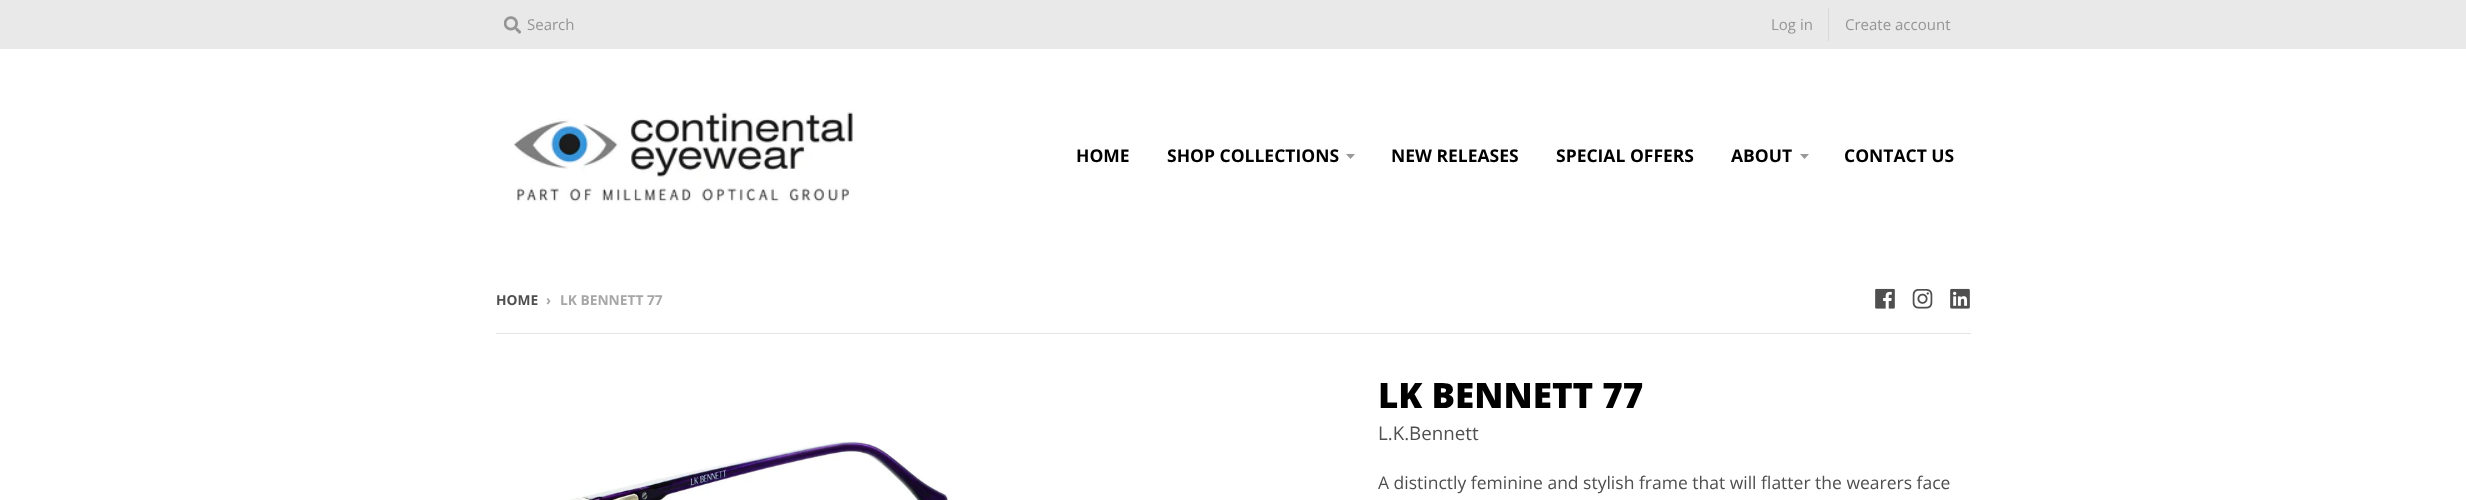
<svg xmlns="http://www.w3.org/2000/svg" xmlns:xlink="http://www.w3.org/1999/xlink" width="2466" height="500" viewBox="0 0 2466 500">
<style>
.cls-1{font:15px Open Sans;fill:#959595}
.cls-2{font:bold 17.5px Open Sans;fill:#000000}
.cls-3{font:bold 13.75px Open Sans;fill:#4f4f4f}
.cls-4{font:bold 13.75px Open Sans;fill:#a7a7a7}
.cls-5{font:800 35px Open Sans;fill:#000000}
.cls-6{font:18.75px Open Sans;fill:#4f4f4f}
.cls-7{font:17.5px Open Sans;fill:#4f4f4f}
</style>
<rect width="100%" height="100%" fill="#ffffff"/>
<rect fill="#e9e9e9" x="0" y="0" width="2466" height="49"/>
<image xlink:href="image0.png" x="504" y="16" width="17" height="18"/>
<rect fill="#d8d8d8" x="1828" y="8" width="1" height="33"/>
<image xlink:href="image1.png" x="513" y="110" width="340" height="94"/>
<path fill="#999999" d="M1346 154L1350.5 159L1355 154Z"/>
<path fill="#999999" d="M1800 154L1804.5 159L1809 154Z"/>
<image xlink:href="image2.png" x="1875" y="288" width="20" height="21"/>
<image xlink:href="image3.png" x="1912" y="289" width="21" height="20"/>
<image xlink:href="image4.png" x="1950" y="288" width="20" height="21"/>
<rect fill="#e5e5e5" x="496" y="333" width="1475" height="1"/>
<image xlink:href="image5.png" x="570" y="440" width="378" height="60"/>
<text class="cls-1" x="527" y="30">Search</text>
<text class="cls-1" x="1771" y="30">Log in</text>
<text class="cls-1" x="1845" y="30">Create account</text>
<text class="cls-2" x="1076" y="162">HOME</text>
<text class="cls-2" x="1167" y="162">SHOP COLLECTIONS</text>
<text class="cls-2" x="1391" y="162">NEW RELEASES</text>
<text class="cls-2" x="1556" y="162">SPECIAL OFFERS</text>
<text class="cls-2" x="1731" y="162">ABOUT</text>
<text class="cls-2" x="1844" y="162">CONTACT US</text>
<text class="cls-3" x="496" y="305">HOME</text>
<text class="cls-4" x="546" y="305">›</text>
<text class="cls-4" x="560" y="305">LK BENNETT 77</text>
<text class="cls-5" x="1378" y="408">LK BENNETT 77</text>
<text class="cls-6" x="1378" y="440">L.K.Bennett</text>
<text class="cls-7" x="1378" y="489">A distinctly feminine and stylish frame that will flatter the wearers face</text>
</svg>
